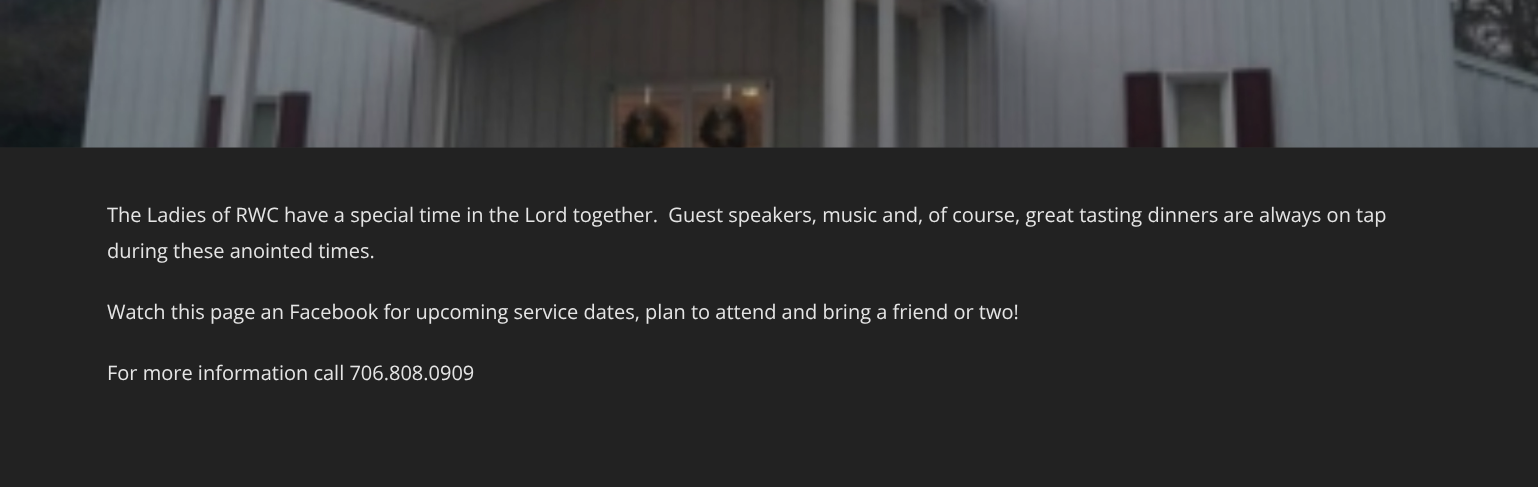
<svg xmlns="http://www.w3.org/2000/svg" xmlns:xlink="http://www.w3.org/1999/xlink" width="1538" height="487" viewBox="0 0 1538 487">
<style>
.cls-1{font:20px Open Sans;fill:#e5e5e5}
</style>
<rect width="100%" height="100%" fill="#222222"/>
<rect fill="#282828" x="0" y="147" width="1538" height="1"/>
<image xlink:href="image0.png" x="0" y="0" width="1538" height="148"/>
<text class="cls-1" xml:space="preserve"><tspan x="107" y="222">The Ladies of RWC have a special time in the Lord together.  Guest speakers, music and, of course, great tasting dinners are always on tap</tspan><tspan x="107" y="258">during these anointed times.</tspan></text>
<text class="cls-1" x="107" y="319">Watch this page an Facebook for upcoming service dates, plan to attend and bring a friend or two!</text>
<text class="cls-1" x="107" y="380">For more information call 706.808.0909</text>
</svg>
